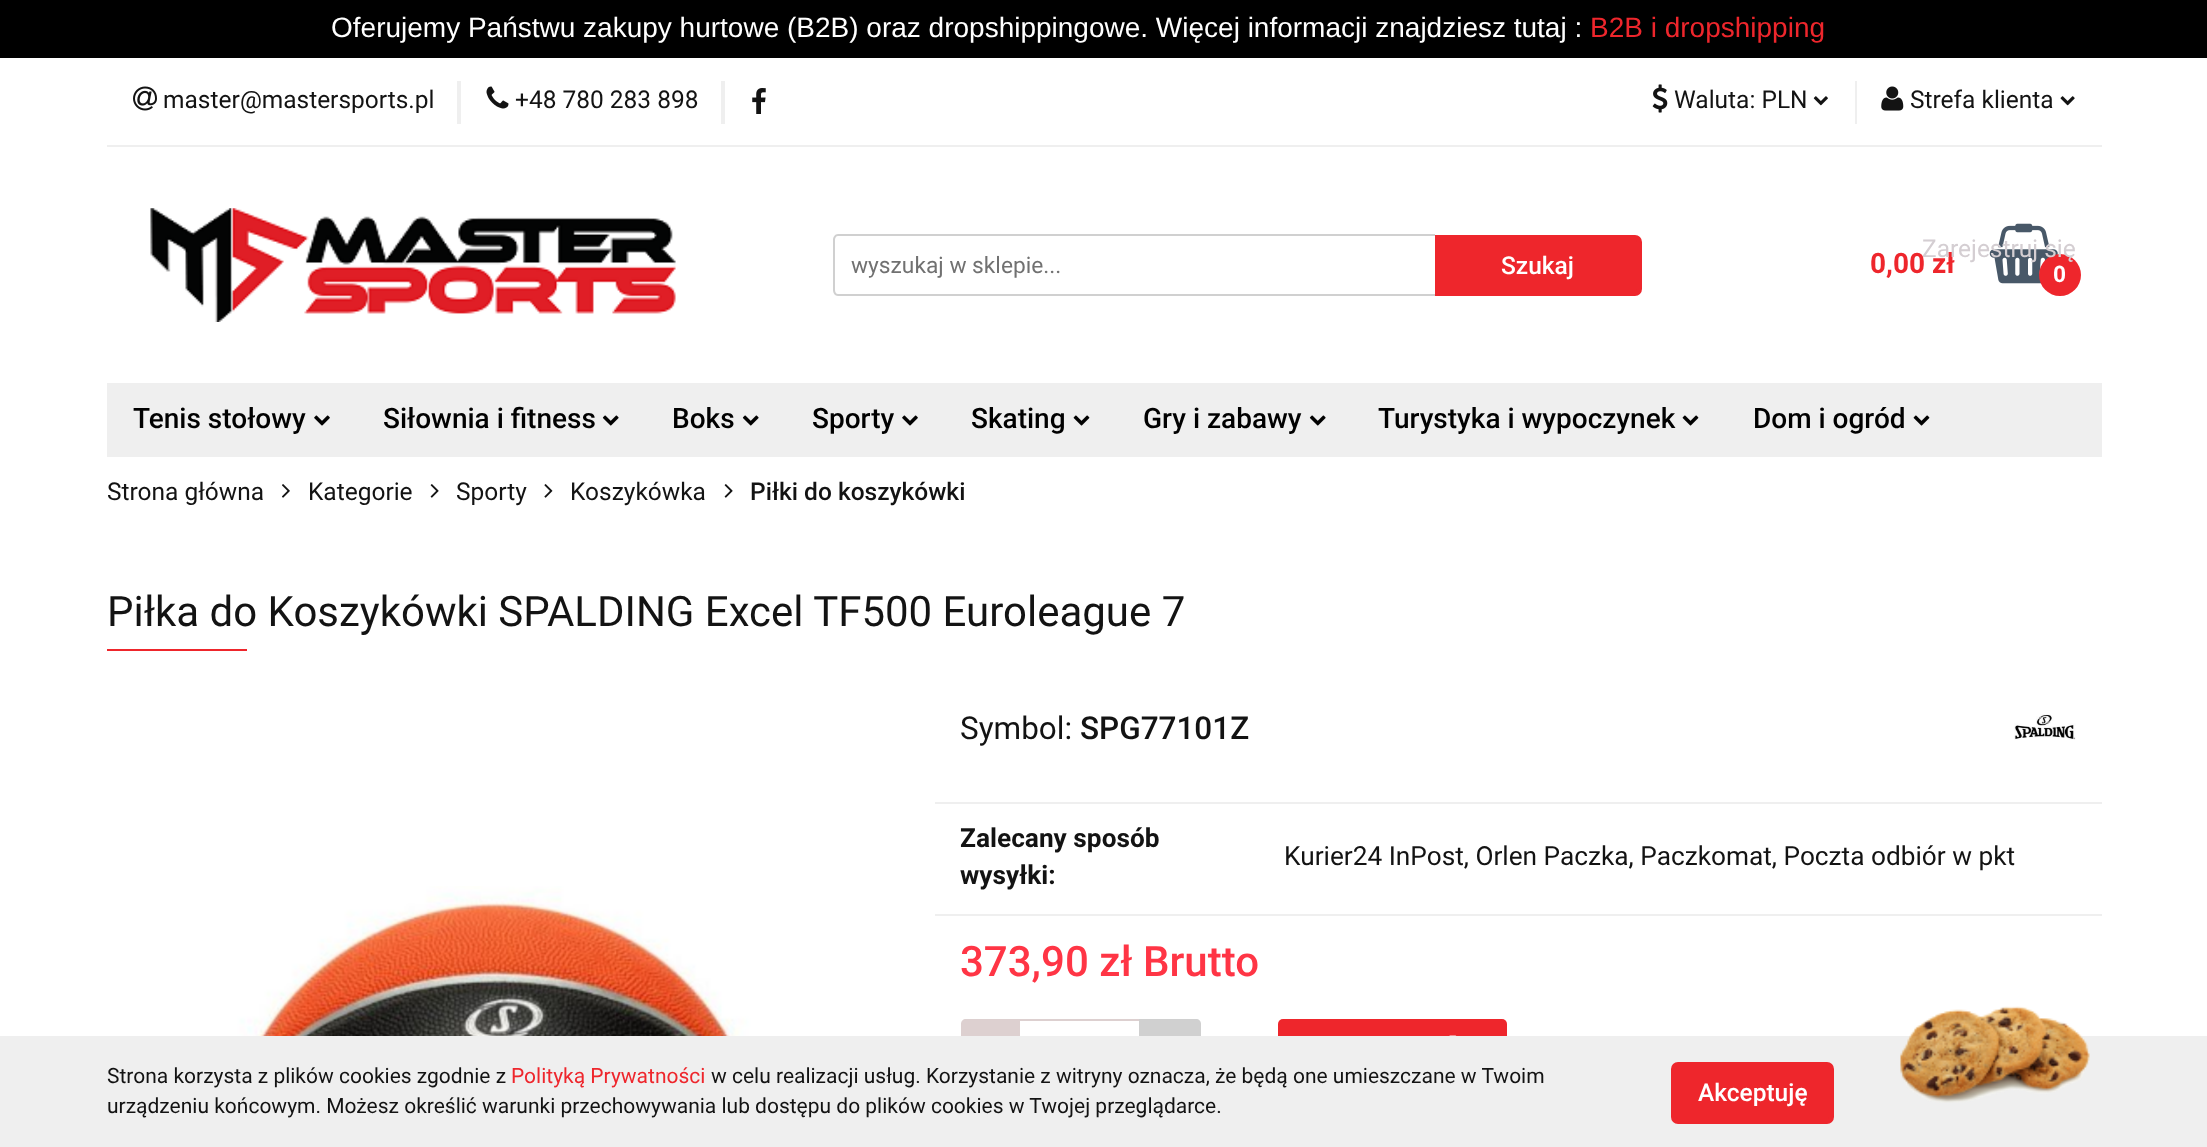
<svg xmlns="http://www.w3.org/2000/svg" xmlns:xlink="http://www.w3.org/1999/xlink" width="2207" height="1147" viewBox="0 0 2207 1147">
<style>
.cls-1{font:28px Liberation Sans;fill:#ffffff}
.cls-2{font:28px Liberation Sans;fill:#ee262c}
.cls-3{font:24.5px Roboto;fill:#131313}
.cls-4{font:22.75px Roboto;fill:#717171}
.cls-5{font:500 24.5px Roboto;fill:#ffffff}
.cls-6{font:bold 28px Roboto;fill:#ee262c}
.cls-7{font:24.5px Roboto;fill:#d4ced2}
.cls-8{font:bold 22.75px Roboto;fill:#ffffff}
.cls-9{font:500 28px Roboto;fill:#010101}
.cls-10{font:500 24.5px Roboto;fill:#131313}
.cls-11{font:42px Roboto;fill:#131313}
.cls-12{font:31.5px Roboto;fill:#131313}
.cls-13{font:500 31.5px Roboto;fill:#131313}
.cls-14{font:bold 26.25px Roboto;fill:#131313}
.cls-15{font:26.25px Roboto;fill:#131313}
.cls-16{font:500 42px Roboto;fill:#ff3545}
.cls-17{font:21px Roboto;fill:#131313}
.cls-18{font:21px Roboto;fill:#ee262c}
</style>
<rect width="100%" height="100%" fill="#ffffff"/>
<rect fill="#000000" x="0" y="0" width="2207" height="58"/>
<rect fill="#efefef" x="107" y="145" width="1995" height="2"/>
<image xlink:href="image0.png" x="133" y="86" width="24" height="25"/>
<rect fill="#efefef" x="457" y="81" width="4" height="43"/>
<image xlink:href="image1.png" x="486" y="86" width="23" height="23"/>
<rect fill="#efefef" x="721" y="81" width="4" height="43"/>
<image xlink:href="image2.png" x="752" y="88" width="14" height="26"/>
<image xlink:href="image3.png" x="1652" y="84" width="16" height="29"/>
<image xlink:href="image4.png" x="1813" y="96" width="15" height="10"/>
<rect fill="#efefef" x="1855" y="81" width="2" height="43"/>
<image xlink:href="image5.png" x="1881" y="86" width="23" height="25"/>
<image xlink:href="image6.png" x="2060" y="96" width="15" height="10"/>
<image xlink:href="image7.png" x="150" y="208" width="526" height="114"/>
<path fill="#d0d0d0" fill-rule="evenodd" d="M838 234H1435V296H838C835 296 833 293 833 290V240C833 237 835 234 838 234ZM838 236H1435V294H838C836 294 835 292 835 290V240C835 238 836 236 838 236Z"/>
<path fill="#ee262c" stroke="#ee262c" stroke-width="5" d="M1437.5 237.5H1635C1637.5 237.5 1639.5 239.5 1639.5 242V289C1639.5 291.5 1637.5 293.5 1635 293.5H1437.5Z"/>
<image xlink:href="image8.png" x="1989" y="223" width="69" height="61"/>
<circle fill="#ee262c" cx="2060" cy="275" r="21"/>
<rect fill="#efefef" x="107" y="383" width="1995" height="74"/>
<image xlink:href="image9.png" x="314" y="415" width="16" height="11"/>
<image xlink:href="image10.png" x="602" y="415" width="17" height="11"/>
<image xlink:href="image10.png" x="742" y="415" width="17" height="11"/>
<image xlink:href="image11.png" x="902" y="415" width="16" height="11"/>
<image xlink:href="image12.png" x="1073" y="415" width="17" height="11"/>
<image xlink:href="image10.png" x="1309" y="415" width="17" height="11"/>
<image xlink:href="image12.png" x="1682" y="415" width="17" height="11"/>
<image xlink:href="image13.png" x="1913" y="415" width="17" height="11"/>
<image xlink:href="image14.png" x="282" y="484" width="8" height="14"/>
<image xlink:href="image15.png" x="430" y="484" width="9" height="14"/>
<image xlink:href="image16.png" x="544" y="484" width="9" height="14"/>
<image xlink:href="image15.png" x="724" y="484" width="9" height="14"/>
<rect fill="#ee262c" x="107" y="649" width="140" height="2"/>
<image xlink:href="image17.png" x="213" y="886" width="558" height="150"/>
<rect fill="#efefef" x="935" y="802" width="1167" height="2"/>
<image xlink:href="image18.png" x="2014" y="714" width="62" height="26"/>
<rect fill="#efefef" x="935" y="914" width="1167" height="2"/>
<path fill="#ddd0d0" d="M966 1019H1020V1080H966C963 1080 961 1078 961 1075V1024C961 1021 963 1019 966 1019Z"/>
<rect fill="#ddd0d0" x="1020" y="1019" width="119" height="2"/>
<path fill="#d0d0d0" d="M1139 1019H1196C1199 1019 1201 1021 1201 1024V1075C1201 1078 1199 1080 1196 1080H1139Z"/>
<rect fill="#ee262c" x="1278" y="1019" width="229" height="61" rx="5"/>
<image xlink:href="image19.png" x="1449" y="1035" width="8" height="1"/>
<rect fill="#efefef" x="0" y="1036" width="2207" height="111"/>
<rect fill="#ee262c" stroke="#ee262c" stroke-width="5" x="1673.5" y="1064.5" width="158" height="57" rx="4.5"/>
<image xlink:href="image20.png" x="1900" y="1006" width="190" height="97"/>
<text class="cls-1" x="331" y="37">Oferujemy Państwu zakupy hurtowe (B2B) oraz dropshippingowe. Więcej informacji znajdziesz tutaj :</text>
<text class="cls-2" x="1590" y="37">B2B i dropshipping</text>
<text class="cls-3" x="163" y="108">master@mastersports.pl</text>
<text class="cls-3" x="515" y="108">+48 780 283 898</text>
<text class="cls-3" x="1674" y="108">Waluta: PLN</text>
<text class="cls-3" x="1910" y="108">Strefa klienta</text>
<text class="cls-4" x="851" y="273">wyszukaj w sklepie...</text>
<text class="cls-5" x="1501" y="274">Szukaj</text>
<text class="cls-6" x="1870" y="273">0,00 zł</text>
<text class="cls-7" x="1922" y="257">Zarejestruj się</text>
<text class="cls-8" x="2053" y="282">0</text>
<text class="cls-9" x="133" y="428">Tenis stołowy</text>
<text class="cls-9" x="383" y="428">Siłownia i fitness</text>
<text class="cls-9" x="672" y="428">Boks</text>
<text class="cls-9" x="812" y="428">Sporty</text>
<text class="cls-9" x="971" y="428">Skating</text>
<text class="cls-9" x="1143" y="428">Gry i zabawy</text>
<text class="cls-9" x="1378" y="428">Turystyka i wypoczynek</text>
<text class="cls-9" x="1753" y="428">Dom i ogród</text>
<text class="cls-3" x="107" y="500">Strona główna</text>
<text class="cls-3" x="308" y="500">Kategorie</text>
<text class="cls-3" x="456" y="500">Sporty</text>
<text class="cls-3" x="570" y="500">Koszykówka</text>
<text class="cls-10" x="750" y="500">Piłki do koszykówki</text>
<text class="cls-11" x="107" y="626">Piłka do Koszykówki SPALDING Excel TF500 Euroleague 7</text>
<text class="cls-12" x="960" y="739">Symbol:</text>
<text class="cls-13" x="1080" y="739">SPG77101Z</text>
<text class="cls-14"><tspan x="960" y="847">Zalecany sposób</tspan><tspan x="960" y="884">wysyłki:</tspan></text>
<text class="cls-15" x="1284" y="865">Kurier24 InPost, Orlen Paczka, Paczkomat, Poczta odbiór w pkt</text>
<text class="cls-16" x="960" y="976">373,90 zł Brutto</text>
<text class="cls-17" x="107" y="1083">Strona korzysta z plików cookies zgodnie z</text>
<text class="cls-18" x="511" y="1083">Polityką Prywatności</text>
<text class="cls-17" x="711" y="1083">w celu realizacji usług. Korzystanie z witryny oznacza, że będą one umieszczane w Twoim</text>
<text class="cls-17" x="107" y="1113">urządzeniu końcowym. Możesz określić warunki przechowywania lub dostępu do plików cookies w Twojej przeglądarce.</text>
<text class="cls-5" x="1698" y="1101">Akceptuję</text>
</svg>
